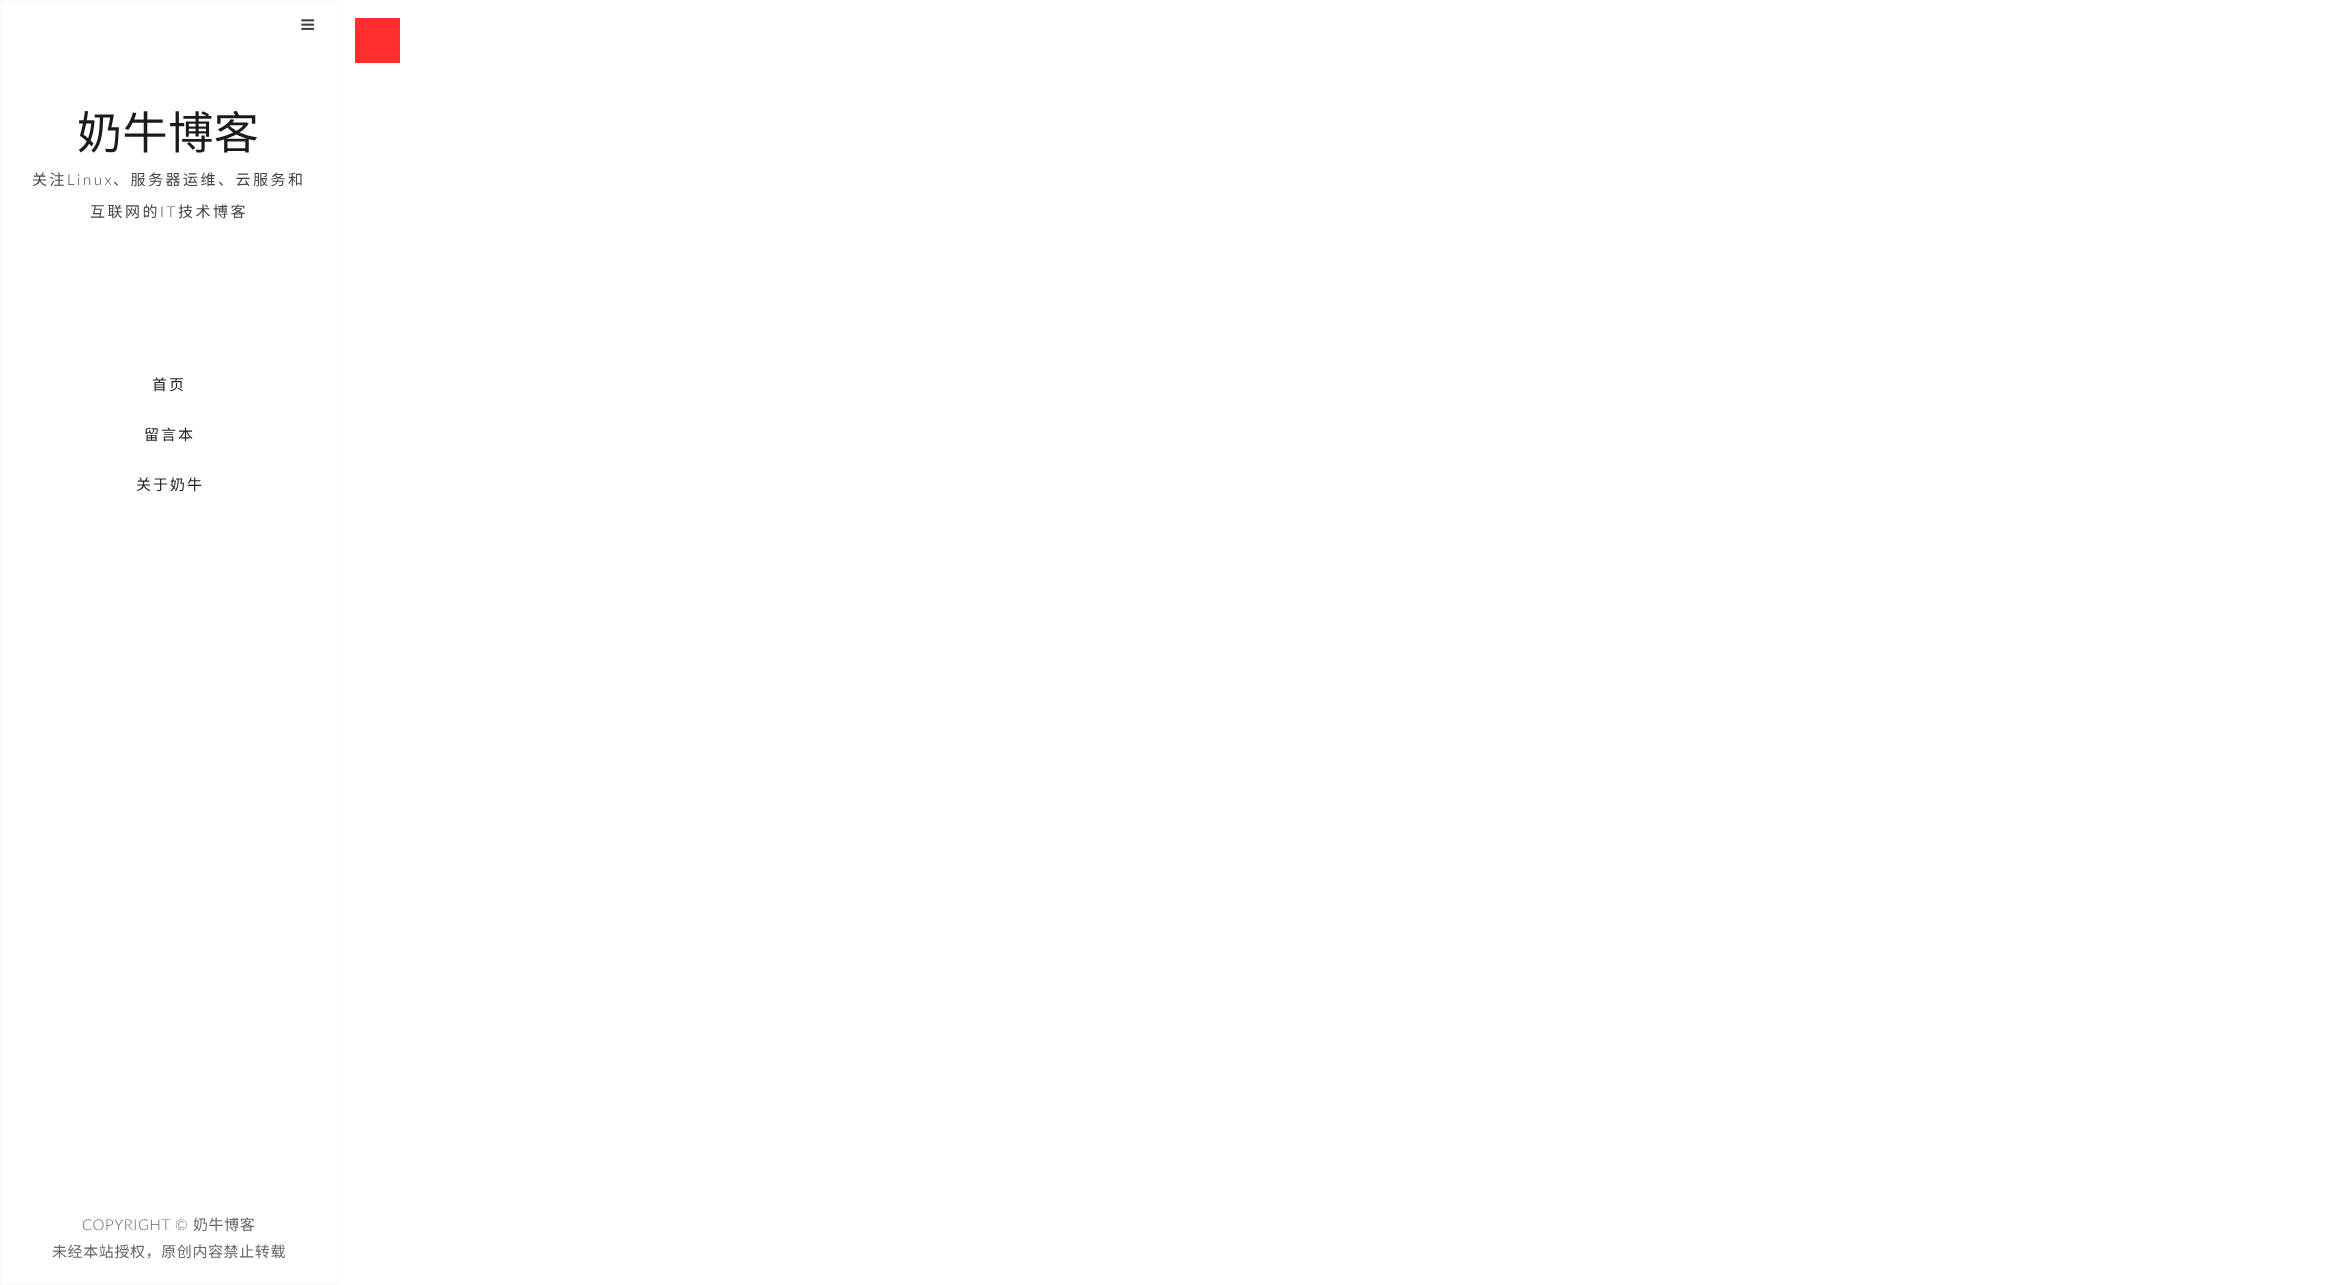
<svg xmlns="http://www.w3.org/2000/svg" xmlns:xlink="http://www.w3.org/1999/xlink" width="2342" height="1285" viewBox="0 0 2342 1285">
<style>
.cls-1{font:45px Noto Sans CJK SC;letter-spacing:0.6px;fill:#1a1a1a}
.cls-2{font:15px Noto Sans CJK SC;letter-spacing:2.5px;fill:#444444}
.cls-3{font:300 15px Lato;letter-spacing:2.5px;fill:#444444}
.cls-4{font:15px Noto Sans CJK SC;letter-spacing:2px;fill:#222222}
.cls-5{font:300 15px Lato;letter-spacing:0.6px;fill:#666666}
.cls-6{font:15px Noto Sans CJK SC;letter-spacing:0.6px;fill:#666666}
</style>
<rect width="100%" height="100%" fill="#ffffff"/>
<rect fill="#ff2d2d" x="355" y="18" width="45" height="45"/>
<rect fill="none" stroke="#f7f8fa" x="0.5" y="0.5" width="337" height="1284"/>
<image xlink:href="image0.png" x="301" y="19" width="14" height="11"/>
<text class="cls-1" x="77" y="149">奶牛博客</text>
<text class="cls-2" x="32" y="185">关注</text>
<text class="cls-3" x="67" y="185">Linux</text>
<text class="cls-2" x="113" y="185">、服务器运维、云服务和</text>
<text class="cls-2" x="90" y="217">互联网的</text>
<text class="cls-3" x="160" y="217">IT</text>
<text class="cls-2" x="178" y="217">技术博客</text>
<text class="cls-4" x="152" y="390">首页</text>
<text class="cls-4" x="144" y="440">留言本</text>
<text class="cls-4" x="136" y="490">关于奶牛</text>
<text class="cls-5" x="82" y="1230">COPYRIGHT ©</text>
<text class="cls-6" x="193" y="1230">奶牛博客</text>
<text class="cls-6" x="52" y="1257">未经本站授权，原创内容禁止转载</text>
</svg>
